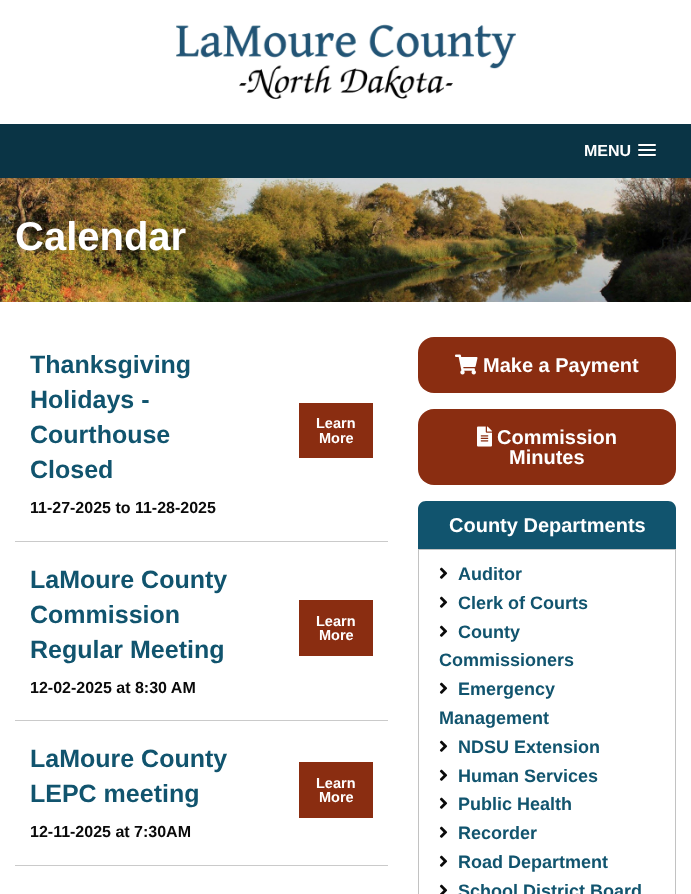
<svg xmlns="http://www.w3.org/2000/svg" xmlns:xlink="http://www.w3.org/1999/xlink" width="691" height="894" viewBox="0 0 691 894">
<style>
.cls-1{font:bold 16px Liberation Sans;fill:#ffffff}
.cls-2{font:bold 40px Liberation Sans;fill:#ffffff}
.cls-3{font:bold 25px Liberation Sans;fill:#11546e}
.cls-4{font:bold 16px Liberation Sans;fill:#0a0a0a}
.cls-5{font:bold 14.5px Liberation Sans;fill:#ffffff}
.cls-6{font:bold 20px Liberation Sans;fill:#ffffff}
.cls-7{font:bold 18px Liberation Sans;fill:#11546e}
</style>
<rect width="100%" height="100%" fill="#ffffff"/>
<image xlink:href="image0.png" x="176" y="24" width="340" height="76"/>
<rect fill="#0a3445" x="0" y="124" width="691" height="54"/>
<path fill="#082734" d="M638 145.5C637 147.5 641.5 147 641.5 147H652.5C652.5 147 657 147.5 656 145.5C655 146.5 648.5 146 647 146C645.5 146 639 146.5 638 145.5Z"/>
<rect fill="#ffffff" x="638" y="144" width="18" height="2" rx="1"/>
<path fill="#082734" d="M638 150.5C637 152.5 641.5 152 641.5 152H652.5C652.5 152 657 152.5 656 150.5C655 151.5 648.5 151 647 151C645.5 151 639 151.5 638 150.5Z"/>
<rect fill="#ffffff" x="638" y="149" width="18" height="2" rx="1"/>
<path fill="#082734" d="M638 155.5C637 157.5 641.5 157 641.5 157H652.5C652.5 157 657 157.5 656 155.5C655 156.5 648.5 156 647 156C645.5 156 639 156.5 638 155.5Z"/>
<rect fill="#ffffff" x="638" y="154" width="18" height="2" rx="1"/>
<image xlink:href="image1.png" x="0" y="178" width="691" height="124"/>
<rect fill="#8a2d11" x="299" y="403" width="74" height="55"/>
<rect fill="#cacaca" x="15" y="541" width="373" height="1"/>
<rect fill="#8a2d11" x="299" y="600" width="74" height="56"/>
<rect fill="#cacaca" x="15" y="720" width="373" height="1"/>
<rect fill="#8a2d11" x="299" y="762" width="74" height="56"/>
<rect fill="#cacaca" x="15" y="865" width="373" height="1"/>
<rect fill="#8a2d11" x="418" y="337" width="258" height="56" rx="16"/>
<image xlink:href="image2.png" x="455" y="354" width="23" height="21"/>
<rect fill="#8a2d11" x="418" y="409" width="258" height="76" rx="16"/>
<image xlink:href="image3.png" x="477" y="426" width="15" height="21"/>
<path fill="#11546e" d="M426 501H668C672.5 501 676 504.5 676 509V549H418V509C418 504.5 421.5 501 426 501Z"/>
<rect fill="none" stroke="#c2c2c2" x="418.5" y="549.5" width="257" height="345"/>
<image xlink:href="image4.png" x="439" y="567" width="9" height="12"/>
<image xlink:href="image4.png" x="439" y="596" width="9" height="12"/>
<image xlink:href="image4.png" x="439" y="625" width="9" height="12"/>
<image xlink:href="image4.png" x="439" y="682" width="9" height="12"/>
<image xlink:href="image4.png" x="439" y="740" width="9" height="12"/>
<image xlink:href="image4.png" x="439" y="769" width="9" height="12"/>
<image xlink:href="image4.png" x="439" y="797" width="9" height="12"/>
<image xlink:href="image4.png" x="439" y="826" width="9" height="12"/>
<image xlink:href="image4.png" x="439" y="855" width="9" height="12"/>
<image xlink:href="image5.png" x="439" y="884" width="9" height="10"/>
<text class="cls-1" x="584" y="156">MENU</text>
<text class="cls-2" x="15" y="250">Calendar</text>
<text class="cls-3"><tspan x="30" y="373">Thanksgiving</tspan><tspan x="30" y="408">Holidays -</tspan><tspan x="30" y="443">Courthouse</tspan><tspan x="30" y="478">Closed</tspan></text>
<text class="cls-4" x="30" y="513">11-27-2025 to 11-28-2025</text>
<text class="cls-5" x="316" y="428">Learn</text>
<text class="cls-5" x="319" y="443">More</text>
<text class="cls-3"><tspan x="30" y="588">LaMoure County</tspan><tspan x="30" y="623">Commission</tspan><tspan x="30" y="658">Regular Meeting</tspan></text>
<text class="cls-4" x="30" y="693">12-02-2025 at 8:30 AM</text>
<text class="cls-5" x="316" y="626">Learn</text>
<text class="cls-5" x="319" y="640">More</text>
<text class="cls-3"><tspan x="30" y="767">LaMoure County</tspan><tspan x="30" y="802">LEPC meeting</tspan></text>
<text class="cls-4" x="30" y="837">12-11-2025 at 7:30AM</text>
<text class="cls-5" x="316" y="788">Learn</text>
<text class="cls-5" x="319" y="802">More</text>
<text class="cls-6" x="483" y="372">Make a Payment</text>
<text class="cls-6" x="497" y="444">Commission</text>
<text class="cls-6" x="509" y="464">Minutes</text>
<text class="cls-6" x="449" y="532">County Departments</text>
<text class="cls-7"><tspan x="458" y="580">Auditor</tspan><tspan x="458" y="609">Clerk of Courts</tspan><tspan x="458" y="638">County</tspan></text>
<text class="cls-7" x="439" y="666">Commissioners</text>
<text class="cls-7" x="458" y="695">Emergency</text>
<text class="cls-7" x="439" y="724">Management</text>
<text class="cls-7"><tspan x="458" y="753">NDSU Extension</tspan><tspan x="458" y="782">Human Services</tspan><tspan x="458" y="810">Public Health</tspan><tspan x="458" y="839">Recorder</tspan><tspan x="458" y="868">Road Department</tspan><tspan x="458" y="897">School District Board</tspan></text>
</svg>
